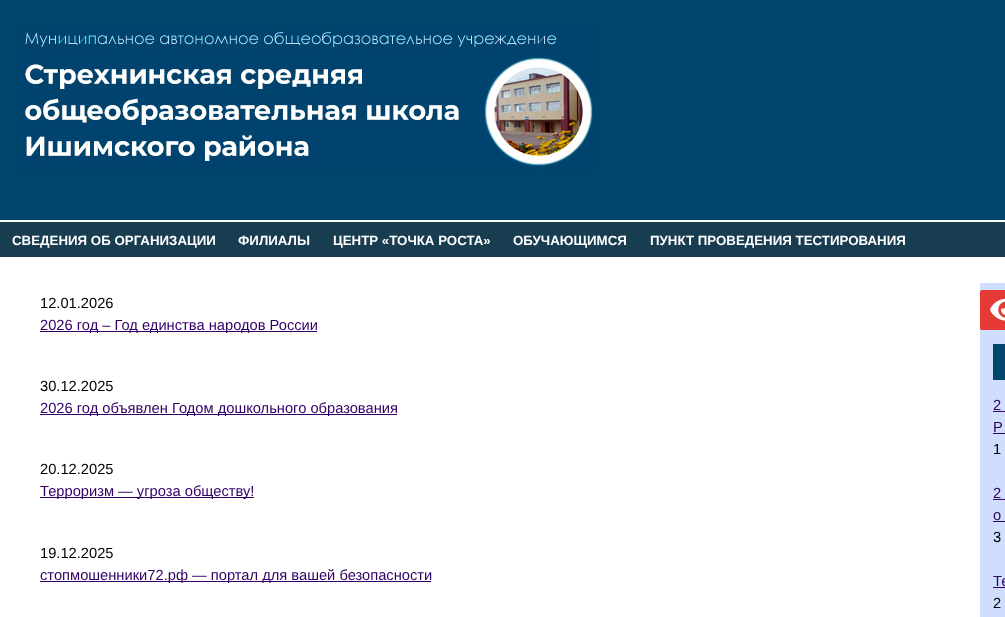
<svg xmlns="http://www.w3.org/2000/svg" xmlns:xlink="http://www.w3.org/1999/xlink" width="1005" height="617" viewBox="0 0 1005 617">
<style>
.cls-1{font:bold 13.3px Liberation Sans;fill:#ffffff}
.cls-2{font:14.7px Liberation Sans;fill:#000000}
.cls-3{font:14.7px Liberation Sans;fill:#330066}
</style>
<rect width="100%" height="100%" fill="#00456b"/>
<image xlink:href="image0.png" x="19" y="27" width="576" height="144"/>
<rect fill="#ffffff" x="0" y="220" width="1005" height="397"/>
<rect fill="#183c50" x="0" y="222" width="1005" height="35"/>
<rect fill="#330066" x="40" y="331" width="277" height="1"/>
<rect fill="#330066" x="40" y="414" width="357" height="1"/>
<rect fill="#330066" x="40" y="497" width="214" height="1"/>
<rect fill="#330066" x="40" y="581" width="391" height="1"/>
<rect fill="#cfdefc" x="980" y="283" width="25" height="334"/>
<rect fill="#e53935" x="980" y="290" width="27" height="40" rx="2"/>
<image xlink:href="image1.png" x="990" y="298" width="15" height="23"/>
<rect fill="#00456b" x="993" y="344" width="12" height="36"/>
<rect fill="#330066" x="993" y="411" width="12" height="1"/>
<rect fill="#330066" x="993" y="433" width="12" height="1"/>
<rect fill="#330066" x="993" y="499" width="12" height="1"/>
<rect fill="#330066" x="993" y="521" width="12" height="1"/>
<rect fill="#330066" x="993" y="587" width="12" height="1"/>
<text class="cls-1" x="12" y="245">СВЕДЕНИЯ ОБ ОРГАНИЗАЦИИ</text>
<text class="cls-1" x="238" y="245">ФИЛИАЛЫ</text>
<text class="cls-1" x="333" y="245">ЦЕНТР «ТОЧКА РОСТА»</text>
<text class="cls-1" x="513" y="245">ОБУЧАЮЩИМСЯ</text>
<text class="cls-1" x="650" y="245">ПУНКТ ПРОВЕДЕНИЯ ТЕСТИРОВАНИЯ</text>
<text class="cls-2" x="40" y="308">12.01.2026</text>
<text class="cls-3" x="40" y="330">2026 год – Год единства народов России</text>
<text class="cls-2" x="40" y="391">30.12.2025</text>
<text class="cls-3" x="40" y="413">2026 год объявлен Годом дошкольного образования</text>
<text class="cls-2" x="40" y="474">20.12.2025</text>
<text class="cls-3" x="40" y="496">Терроризм — угроза обществу!</text>
<text class="cls-2" x="40" y="558">19.12.2025</text>
<text class="cls-3" x="40" y="580">стопмошенники72.рф — портал для вашей безопасности</text>
<text class="cls-3"><tspan x="993" y="410">2</tspan><tspan x="993" y="432">Р</tspan></text>
<text class="cls-2" x="993" y="454">1</text>
<text class="cls-3"><tspan x="993" y="498">2</tspan><tspan x="993" y="520">о</tspan></text>
<text class="cls-2" x="993" y="542">3</text>
<text class="cls-3" x="993" y="586">Те</text>
<text class="cls-2" x="993" y="608">2</text>
</svg>
